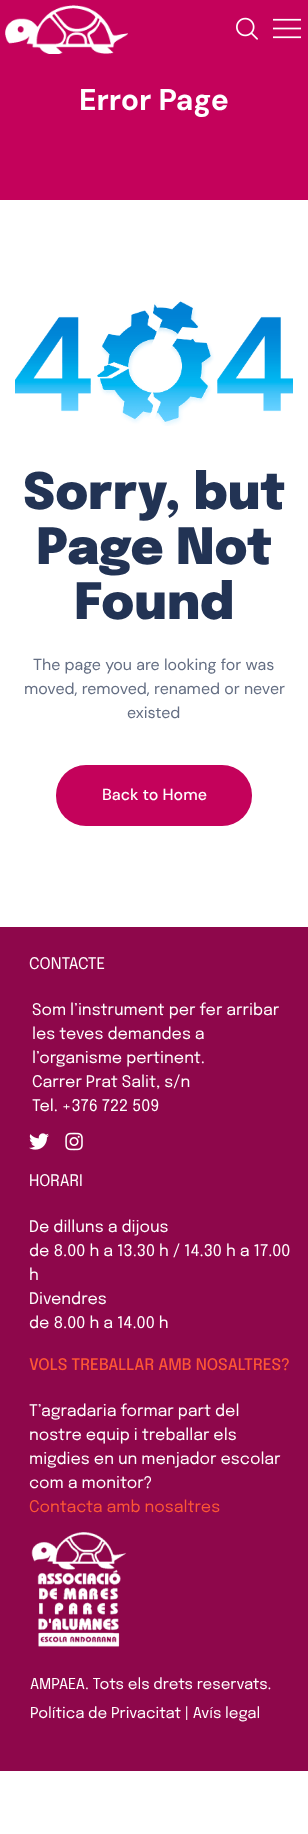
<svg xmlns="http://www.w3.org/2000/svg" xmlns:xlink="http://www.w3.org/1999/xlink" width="308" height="1834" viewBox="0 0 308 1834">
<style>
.cls-1{font:bold 30px DM Sans;fill:#ffffff}
.cls-2{font:900 50px Epilogue;fill:#223354}
.cls-3{font:16px DM Sans;fill:#646e83}
.cls-4{font:500 16px DM Sans;fill:#ffffff}
.cls-5{font:16px Epilogue;fill:#ffffff}
.cls-6{font:500 16px Epilogue;fill:#fd5735}
.cls-7{font:16px Epilogue;fill:#fd5735}
.cls-8{font:15px Epilogue;fill:#ffffff}
</style>
<rect width="100%" height="100%" fill="#ffffff"/>
<rect fill="#c4025b" x="0" y="0" width="308" height="200"/>
<image xlink:href="image0.png" x="5" y="5" width="123" height="49"/>
<image xlink:href="image1.png" x="236" y="17" width="22" height="23"/>
<image xlink:href="image2.png" x="273" y="18" width="28" height="21"/>
<image xlink:href="image3.png" x="15" y="301" width="278" height="125"/>
<rect fill="#c4025b" x="56" y="765" width="196" height="61" rx="30"/>
<rect fill="#8e074b" x="0" y="927" width="308" height="844"/>
<image xlink:href="image4.png" x="29" y="1133" width="20" height="17"/>
<image xlink:href="image5.png" x="65" y="1132" width="18" height="19"/>
<image xlink:href="image6.png" x="31" y="1532" width="96" height="115"/>
<text class="cls-1" x="79" y="110">Error Page</text>
<text class="cls-2" x="23" y="509">Sorry, but</text>
<text class="cls-2" x="36" y="564">Page Not</text>
<text class="cls-2" x="74" y="619">Found</text>
<text class="cls-3" x="33" y="670">The page you are looking for was</text>
<text class="cls-3" x="24" y="694">moved, removed, renamed or never</text>
<text class="cls-3" x="127" y="718">existed</text>
<text class="cls-4" x="102" y="800">Back to Home</text>
<text class="cls-5" x="29" y="969">CONTACTE</text>
<text class="cls-5"><tspan x="32" y="1015">Som l’instrument per fer arribar</tspan><tspan x="32" y="1039">les teves demandes a</tspan><tspan x="32" y="1063">l’organisme pertinent.</tspan><tspan x="32" y="1087">Carrer Prat Salit, s/n</tspan><tspan x="32" y="1111">Tel. +376 722 509</tspan></text>
<text class="cls-5" x="29" y="1186">HORARI</text>
<text class="cls-5"><tspan x="29" y="1232">De dilluns a dijous</tspan><tspan x="29" y="1256">de 8.00 h a 13.30 h / 14.30 h a 17.00</tspan><tspan x="29" y="1280">h</tspan><tspan x="29" y="1304">Divendres</tspan><tspan x="29" y="1328">de 8.00 h a 14.00 h</tspan></text>
<text class="cls-6" x="29" y="1370">VOLS TREBALLAR AMB NOSALTRES?</text>
<text class="cls-5"><tspan x="29" y="1416">T’agradaria formar part del</tspan><tspan x="29" y="1440">nostre equip i treballar els</tspan><tspan x="29" y="1464">migdies en un menjador escolar</tspan><tspan x="29" y="1488">com a monitor?</tspan></text>
<text class="cls-7" x="29" y="1512">Contacta amb nosaltres</text>
<text class="cls-8"><tspan x="30" y="1689">AMPAEA. Tots els drets reservats.</tspan><tspan x="30" y="1718">Política de Privacitat | Avís legal</tspan></text>
</svg>
